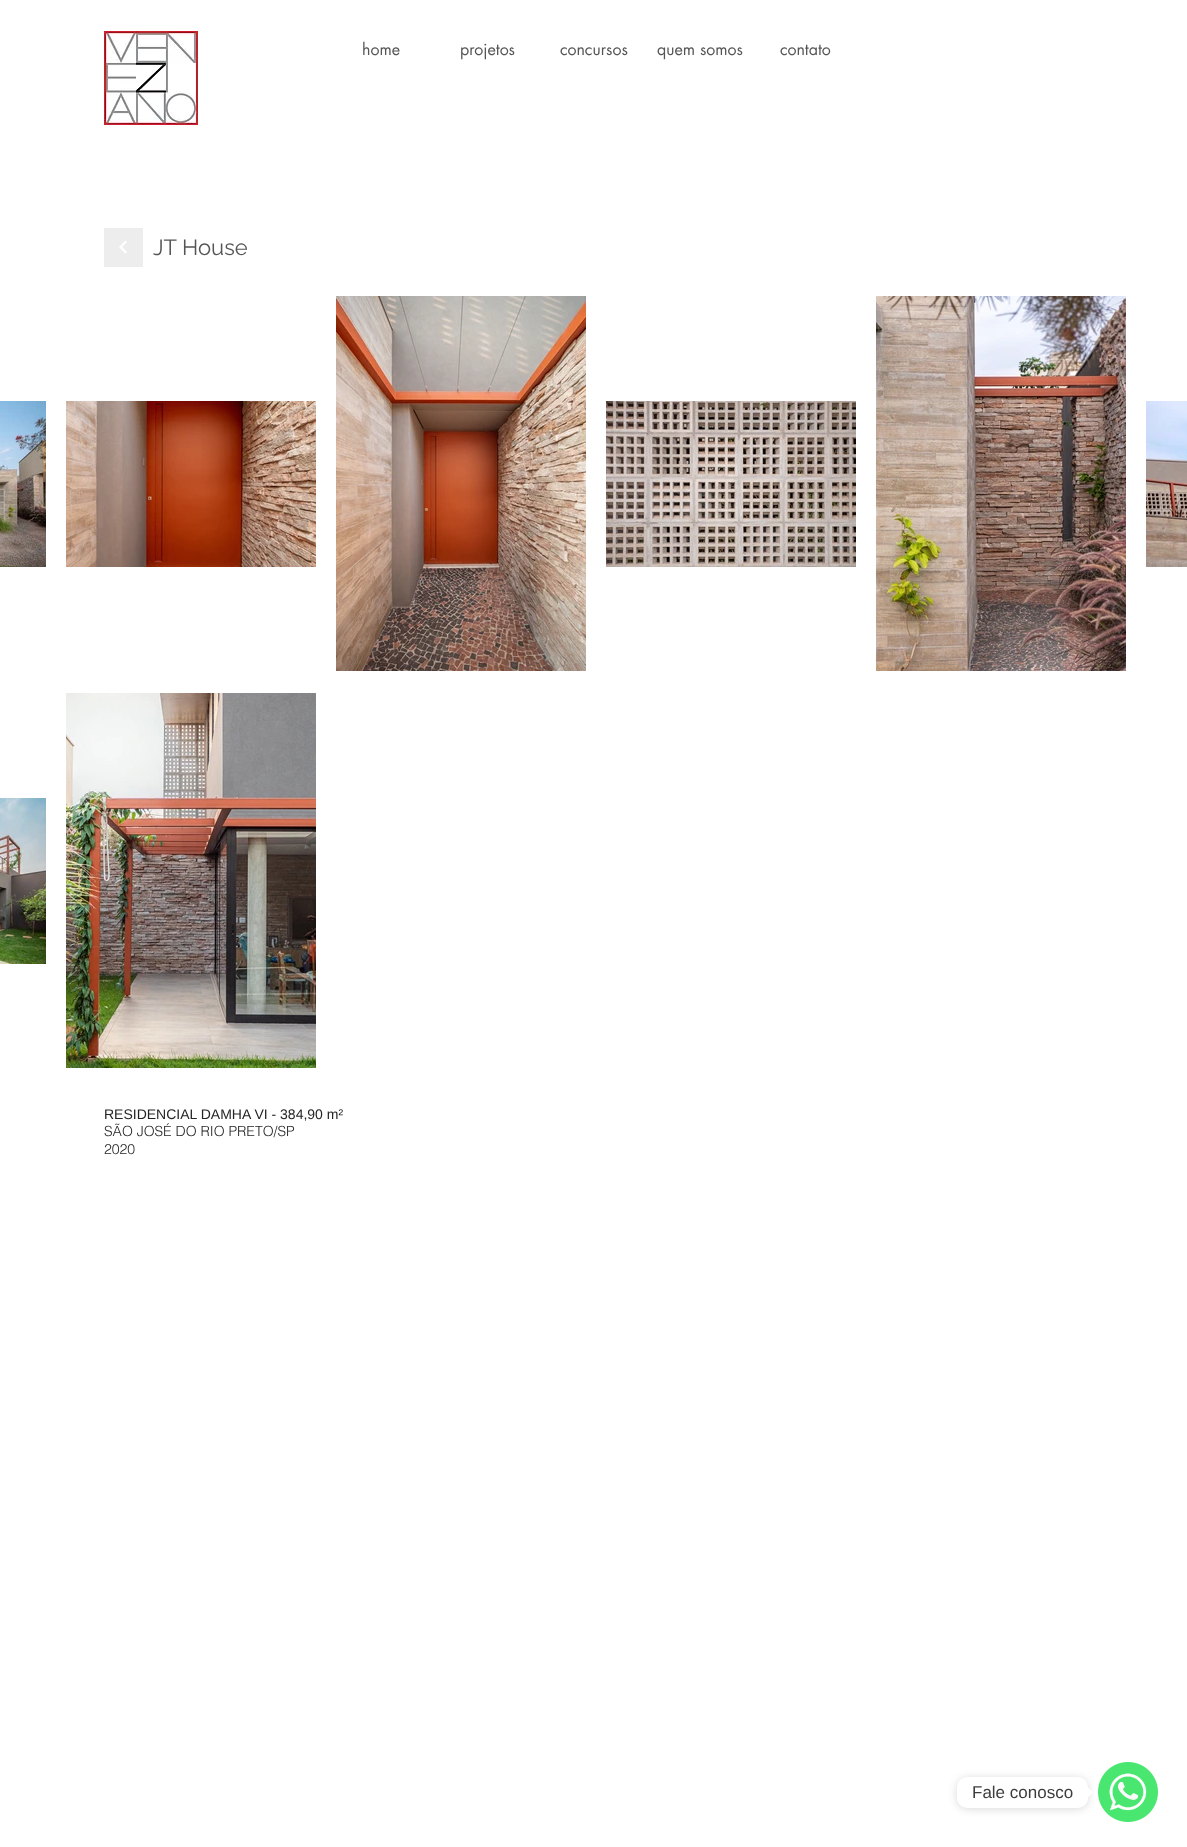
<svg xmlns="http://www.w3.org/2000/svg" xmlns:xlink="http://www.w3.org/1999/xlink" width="1187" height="1847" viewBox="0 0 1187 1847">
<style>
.cls-1{font:16px futura;fill:#555555}
.cls-2{font:22px Raleway;fill:#555555}
.cls-3{font:14px Liberation Sans;fill:#242424}
.cls-4{font:300 14px helvetica;fill:#242424}
.cls-5{font:17px Liberation Sans;fill:#3d3d3d}
</style>
<rect width="100%" height="100%" fill="#ffffff"/>
<image xlink:href="image0.png" x="104" y="31" width="94" height="94"/>
<rect fill="#ededed" x="104" y="228" width="39" height="39"/>
<image xlink:href="image1.png" x="119" y="241" width="8" height="13"/>
<image xlink:href="image2.png" x="0" y="401" width="46" height="166"/>
<image xlink:href="image3.png" x="66" y="401" width="250" height="166"/>
<image xlink:href="image4.png" x="336" y="296" width="250" height="375"/>
<image xlink:href="image5.png" x="606" y="401" width="250" height="166"/>
<image xlink:href="image6.png" x="876" y="296" width="250" height="375"/>
<image xlink:href="image7.png" x="1146" y="401" width="41" height="166"/>
<image xlink:href="image8.png" x="0" y="798" width="46" height="166"/>
<image xlink:href="image9.png" x="66" y="693" width="250" height="375"/>
<image xlink:href="image10.png" x="1098" y="1762" width="60" height="60"/>
<rect fill="#000000" fill-opacity="0.15" filter="blur(4px)" x="957" y="1778" width="131" height="31" rx="10"/>
<rect fill="#ffffff" x="957" y="1777" width="131" height="31" rx="10"/>
<path fill="#ffffff" d="M1088 1797.5V1787.5L1093 1792.5Z"/>
<text class="cls-1" x="362" y="55">home</text>
<text class="cls-1" x="460" y="55">projetos</text>
<text class="cls-1" x="560" y="55">concursos</text>
<text class="cls-1" x="657" y="55">quem somos</text>
<text class="cls-1" x="780" y="55">contato</text>
<text class="cls-2" x="153" y="255">JT House</text>
<text class="cls-3" x="104" y="1119">RESIDENCIAL DAMHA VI - 384,90 m²</text>
<text class="cls-4"><tspan x="104" y="1136">SÃO JOSÉ DO RIO PRETO/SP</tspan><tspan x="104" y="1154">2020</tspan></text>
<text class="cls-5" x="972" y="1798">Fale conosco</text>
</svg>
